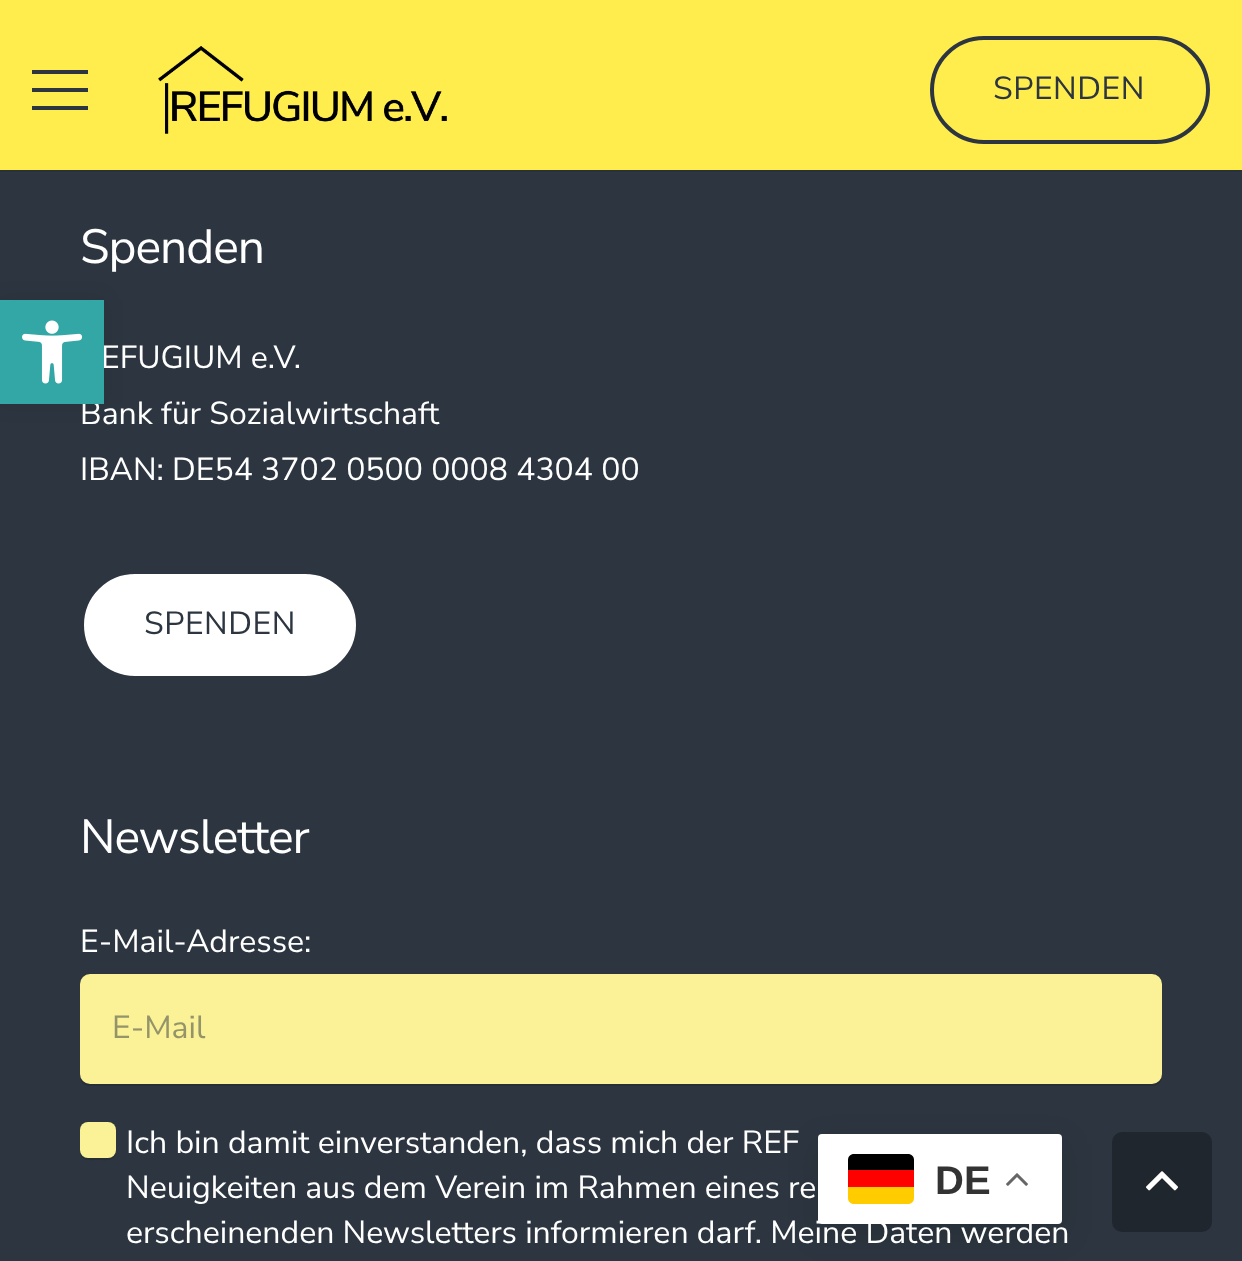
<svg xmlns="http://www.w3.org/2000/svg" xmlns:xlink="http://www.w3.org/1999/xlink" width="1242" height="1261" viewBox="0 0 1242 1261">
<style>
.cls-1{font:32px Nunito Sans;letter-spacing:0.5px;fill:#2d3640}
.cls-2{font:48px Nunito Sans;letter-spacing:-1px;fill:#ffffff}
.cls-3{font:32px Nunito Sans;fill:#ffffff}
.cls-4{font:32px Nunito Sans;fill:#94946b}
.cls-5{font:bold 40px Liberation Sans;fill:#333333}
</style>
<rect width="100%" height="100%" fill="#2d3640"/>
<rect fill="#ffed4d" x="0" y="0" width="1242" height="170"/>
<rect fill="#29323b" x="0" y="170" width="1242" height="2"/>
<rect fill="#2d3640" x="32" y="88" width="56" height="4"/>
<rect fill="#2d3640" x="32" y="70" width="56" height="4"/>
<rect fill="#2d3640" x="32" y="106" width="56" height="4"/>
<image xlink:href="image0.png" x="158" y="46" width="289" height="88"/>
<rect fill="none" stroke="#2d3640" stroke-width="4" x="932" y="38" width="276" height="104" rx="52"/>
<rect fill="#000000" fill-opacity="0.1" filter="blur(10px)" x="0" y="300" width="104" height="104"/>
<rect fill="#ffffff" stroke="#2d3640" stroke-width="4" x="82" y="572" width="276" height="106" rx="53"/>
<path fill="#262e36" d="M80 1074V1076C80 1082 84 1086 90 1086H1152C1158 1086 1162 1082 1162 1076V1074C1162 1080 1158 1084 1152 1084H90C84 1084 80 1080 80 1074Z"/>
<rect fill="#fbf196" x="80" y="974" width="1082" height="110" rx="10"/>
<path fill="#262e36" d="M80 1151C80 1162 90 1160 98 1160C106 1160 116 1162 116 1151C116 1155 113 1158 109 1158H87C83 1158 80 1155 80 1151Z"/>
<rect fill="#fbf196" x="80" y="1122" width="36" height="36" rx="8"/>
<rect fill="#000000" fill-opacity="0.15" filter="blur(15px)" x="818" y="1144" width="244" height="90" rx="4"/>
<rect fill="#ffffff" x="818" y="1134" width="244" height="90" rx="4"/>
<path fill="#ffcc00" d="M848 1187H914V1198C914 1201.5 911.5 1204 908 1204H854C850.5 1204 848 1201.5 848 1198Z"/>
<path fill="#000000" d="M854 1154H908C911.5 1154 914 1156.5 914 1160V1170H848V1160C848 1156.5 850.5 1154 854 1154Z"/>
<rect fill="#ff0000" x="848" y="1170" width="66" height="17"/>
<image xlink:href="image2.png" x="1006" y="1173" width="22" height="13"/>
<rect fill="#20262d" x="1112" y="1132" width="100" height="100" rx="10"/>
<image xlink:href="image3.png" x="1146" y="1171" width="32" height="20"/>
<text class="cls-1" x="993" y="99">SPENDEN</text>
<text class="cls-2" x="80" y="263">Spenden</text>
<text class="cls-3" x="101" y="368">EFUGIUM e.V.</text>
<text class="cls-3" x="80" y="424">Bank für Sozialwirtschaft</text>
<rect fill="#33a6a6" x="0" y="300" width="104" height="104"/>
<image xlink:href="image1.png" x="22" y="320" width="61" height="64"/>
<text class="cls-3" x="80" y="480">IBAN: DE54 3702 0500 0008 4304 00</text>
<text class="cls-1" x="144" y="634">SPENDEN</text>
<text class="cls-2" x="80" y="853">Newsletter</text>
<text class="cls-3" x="80" y="952">E-Mail-Adresse:</text>
<text class="cls-4" x="112" y="1038">E-Mail</text>
<text class="cls-3"><tspan x="126" y="1153">Ich bin damit einverstanden, dass mich der REF</tspan><tspan x="126" y="1198">Neuigkeiten aus dem Verein im Rahmen eines re</tspan><tspan x="126" y="1243">erscheinenden Newsletters informieren darf. Meine Daten werden</tspan></text>
<text class="cls-5" x="935" y="1194">DE</text>
</svg>
